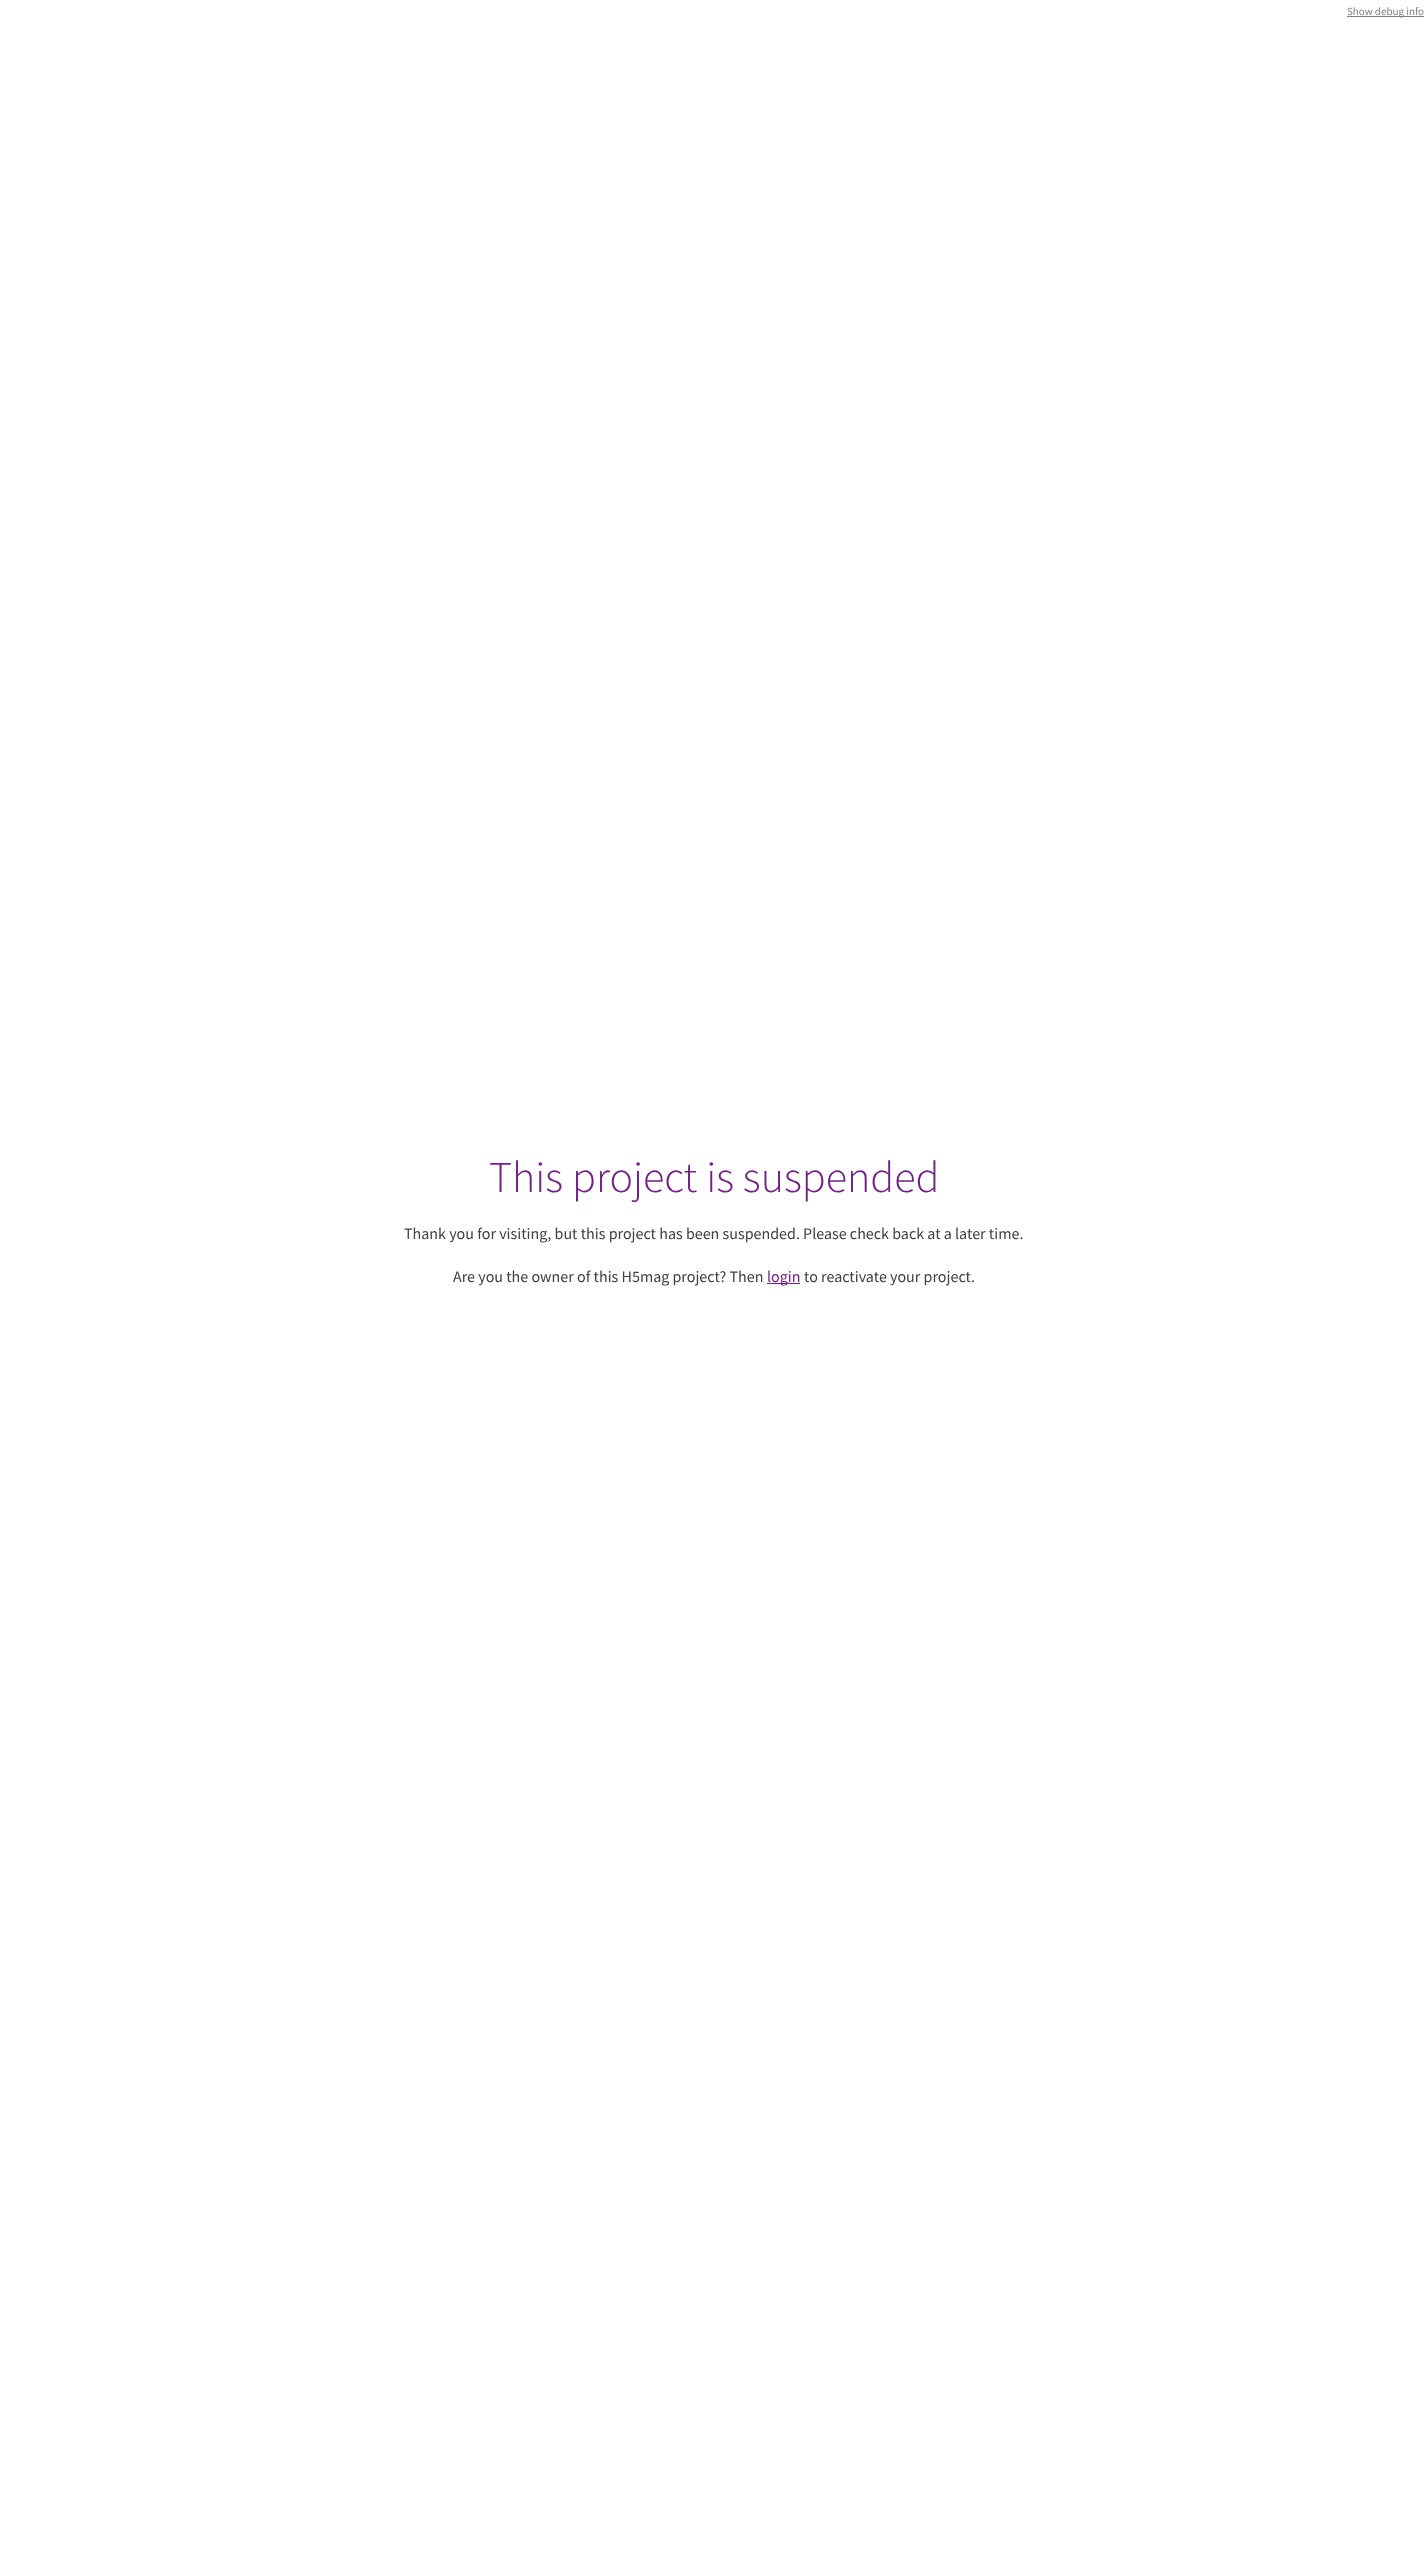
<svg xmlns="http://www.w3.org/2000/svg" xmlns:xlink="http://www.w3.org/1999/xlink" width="1428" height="2550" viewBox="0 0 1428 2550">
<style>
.cls-1{font:11px Source Sans Pro;fill:#808080}
.cls-2{font:300 44px Source Sans Pro;fill:#6f2281}
.cls-3{font:16px Source Sans Pro;fill:#404040}
.cls-4{font:16px Source Sans Pro;fill:#6f2281}
</style>
<rect width="100%" height="100%" fill="#ffffff"/>
<rect fill="#808080" x="1347" y="16" width="77" height="1"/>
<rect fill="#6f2281" x="767" y="1283" width="33" height="1"/>
<text class="cls-1" x="1347" y="15">Show debug info</text>
<text class="cls-2" x="489" y="1192">This project is suspended</text>
<text class="cls-3" x="404" y="1239">Thank you for visiting, but this project has been suspended. Please check back at a later time.</text>
<text class="cls-3" x="453" y="1282">Are you the owner of this H5mag project? Then</text>
<text class="cls-4" x="767" y="1282">login</text>
<text class="cls-3" x="804" y="1282">to reactivate your project.</text>
</svg>
